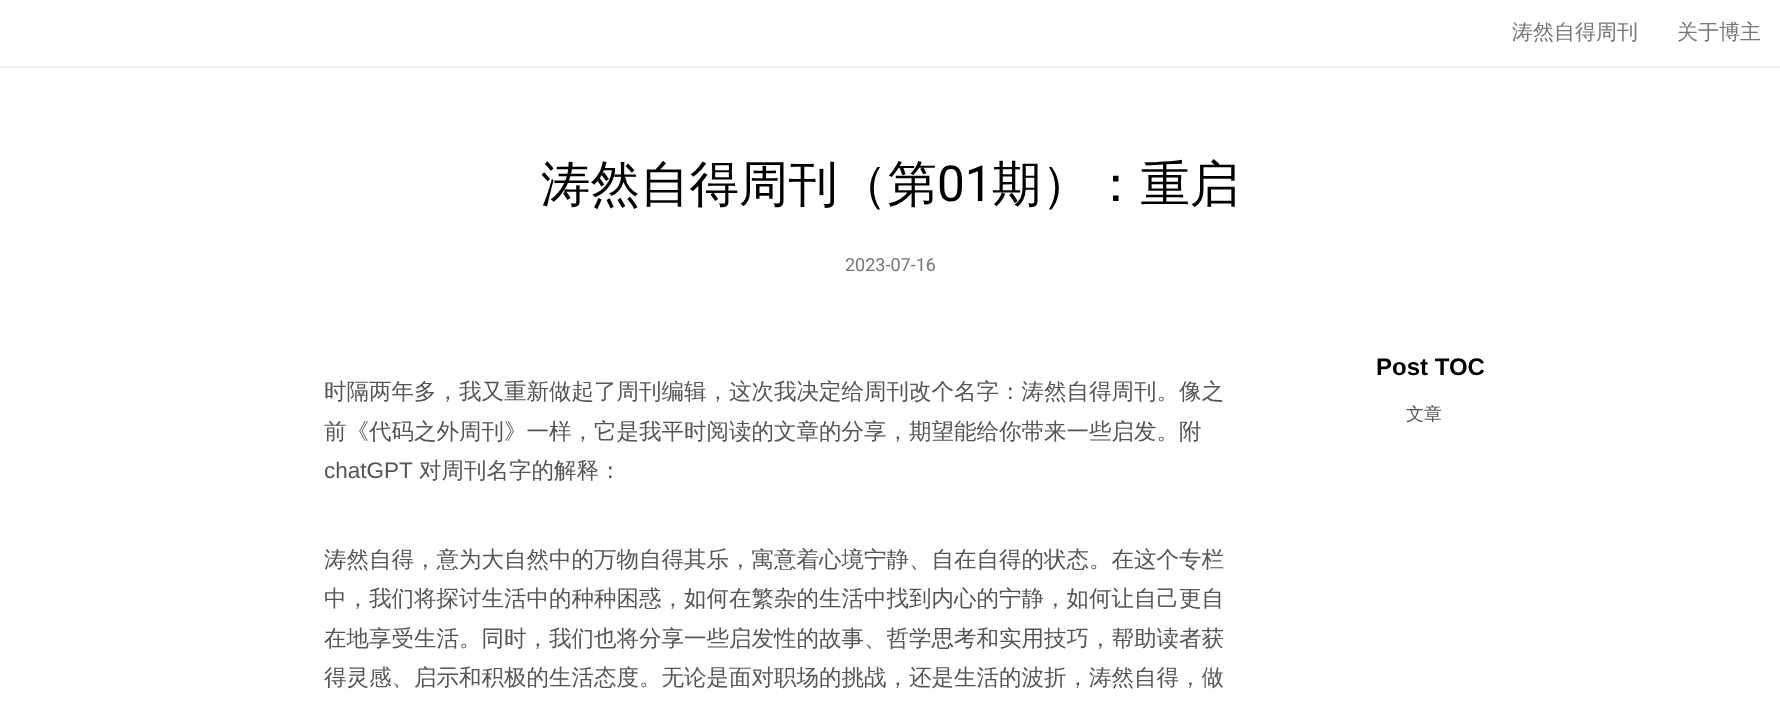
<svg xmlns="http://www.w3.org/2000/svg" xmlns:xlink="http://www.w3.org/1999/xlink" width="1780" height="710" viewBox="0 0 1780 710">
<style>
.cls-1{font:500 21px WenQuanYi Zen Hei;fill:#777777}
.cls-2{font:500 49.5px WenQuanYi Zen Hei;fill:#000000}
.cls-3{font:49.5px Roboto;fill:#000000}
.cls-4{font:18px Roboto;fill:#777777}
.cls-5{font:500 22.5px WenQuanYi Zen Hei;fill:#555555}
.cls-6{font:22.5px Liberation Sans;fill:#555555}
.cls-7{font:bold 24px Liberation Sans;fill:#000000}
.cls-8{font:500 18px WenQuanYi Zen Hei;fill:#555555}
</style>
<rect width="100%" height="100%" fill="#ffffff"/>
<rect fill="#eeeeee" x="0" y="66" width="1780" height="2"/>
<text class="cls-1" x="1512" y="39">涛然自得周刊</text>
<text class="cls-1" x="1677" y="39">关于博主</text>
<text class="cls-2" x="541" y="201">涛然自得周刊（第</text>
<text class="cls-3" x="937" y="201">01</text>
<text class="cls-2" x="992" y="201">期）：重启</text>
<text class="cls-4" x="845" y="271">2023-07-16</text>
<text class="cls-5"><tspan x="324" y="399">时隔两年多，我又重新做起了周刊编辑，这次我决定给周刊改个名字：涛然自得周刊。像之</tspan><tspan x="324" y="439">前《代码之外周刊》一样，它是我平时阅读的文章的分享，期望能给你带来一些启发。附</tspan></text>
<text class="cls-6" x="324" y="478">chatGPT</text>
<text class="cls-5" x="419" y="478">对周刊名字的解释：</text>
<text class="cls-5"><tspan x="324" y="567">涛然自得，意为大自然中的万物自得其乐，寓意着心境宁静、自在自得的状态。在这个专栏</tspan><tspan x="324" y="606">中，我们将探讨生活中的种种困惑，如何在繁杂的生活中找到内心的宁静，如何让自己更自</tspan><tspan x="324" y="646">在地享受生活。同时，我们也将分享一些启发性的故事、哲学思考和实用技巧，帮助读者获</tspan><tspan x="324" y="685">得灵感、启示和积极的生活态度。无论是面对职场的挑战，还是生活的波折，涛然自得，做</tspan></text>
<text class="cls-7" x="1376" y="375">Post TOC</text>
<text class="cls-8" x="1406" y="420">文章</text>
</svg>
